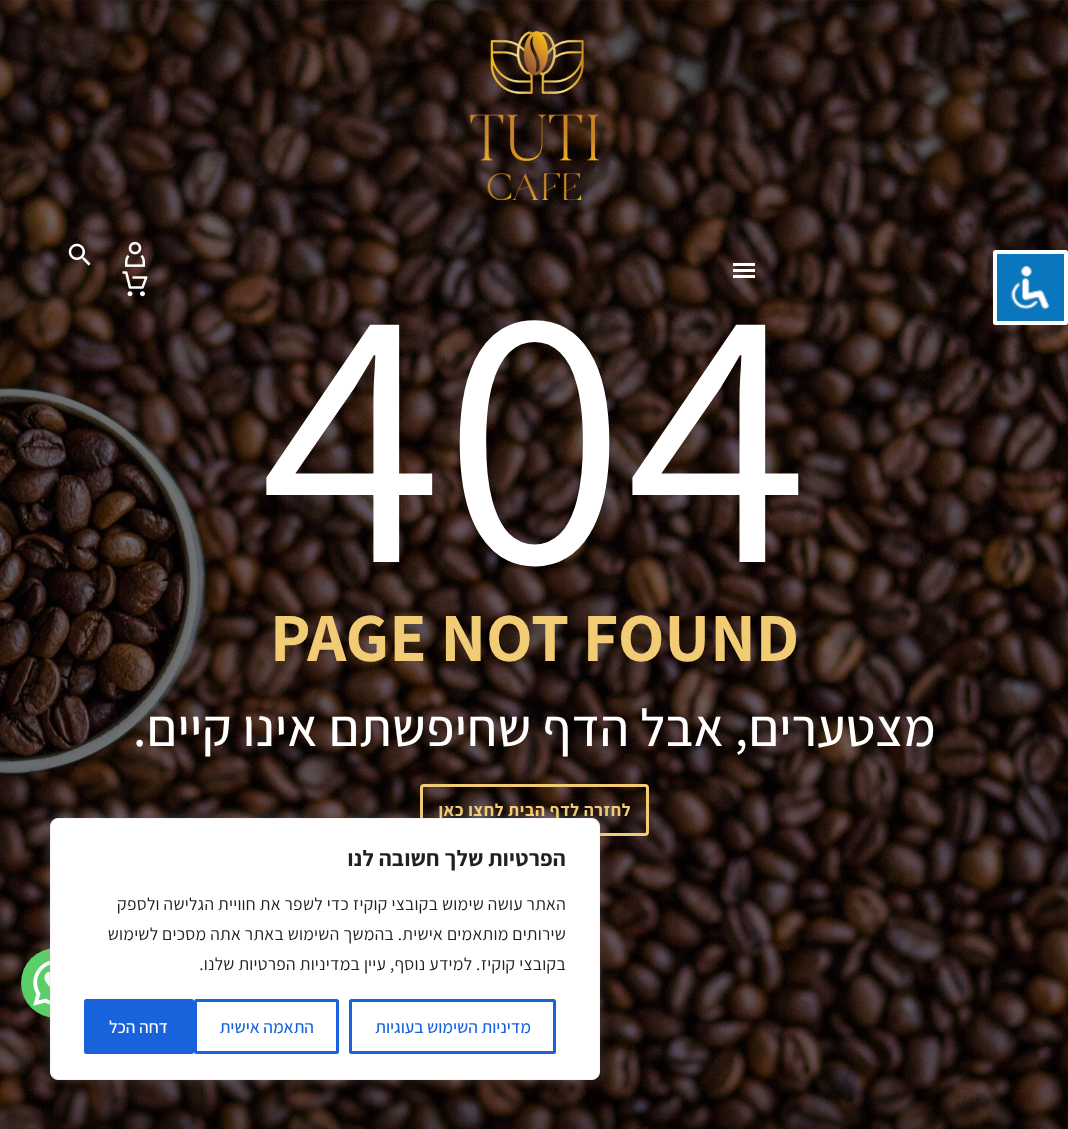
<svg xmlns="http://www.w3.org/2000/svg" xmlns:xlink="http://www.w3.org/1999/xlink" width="1068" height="1129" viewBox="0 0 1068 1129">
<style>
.cls-1{font:372px Assistant;fill:#ffffff}
.cls-2{font:bold 68.75px Assistant;fill:#f2cc74}
.cls-3{font:500 52.5px Assistant;letter-spacing:0.3px;direction:rtl;fill:#ffffff}
.cls-4{font:bold 17.5px Assistant;letter-spacing:0.6px;direction:rtl;fill:#f2cc74}
.cls-5{font:bold 22.5px Assistant;letter-spacing:0.3px;direction:rtl;fill:#212121}
.cls-6{font:17.5px Assistant;letter-spacing:0.3px;direction:rtl;fill:#212121}
.cls-7{font:500 17.5px Assistant;direction:rtl;fill:#1863dc}
.cls-8{font:500 17.5px Assistant;direction:rtl;fill:#ffffff}
</style>
<rect width="100%" height="100%" fill="#ffffff"/>
<image xlink:href="image5.png" x="0" y="0" width="1068" height="1129"/>
<rect fill="#0a76be" stroke="#ffffff" stroke-width="4" x="995" y="252" width="71" height="71" rx="0.5"/>
<image xlink:href="image0.png" x="1010" y="266" width="40" height="44"/>
<image xlink:href="image1.png" x="470" y="31" width="129" height="169"/>
<rect fill="#ffffff" x="733" y="263" width="22" height="3"/>
<rect fill="#ffffff" x="733" y="269" width="22" height="3"/>
<rect fill="#ffffff" x="733" y="275" width="22" height="3"/>
<image xlink:href="image2.png" x="125" y="241" width="20" height="26"/>
<image xlink:href="image3.png" x="68" y="243" width="23" height="23"/>
<image xlink:href="image4.png" x="122" y="271" width="26" height="26"/>
<rect fill="none" stroke="#f2cc74" stroke-width="3" x="421.5" y="785.5" width="226" height="49" rx="2.5"/>
<rect fill="#000000" fill-opacity="0.41" filter="blur(24px)" x="18" y="1120" width="1033" height="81"/>
<circle fill="#5acf68" cx="56" cy="983" r="35"/>
<image xlink:href="image6.png" x="33" y="960" width="17" height="46"/>
<rect fill="#acabab" fill-opacity="0.3" filter="blur(6px)" x="50" y="816" width="550" height="263" rx="8"/>
<text class="cls-1" x="260" y="562">404</text>
<text class="cls-2" x="270" y="661">PAGE NOT FOUND</text>
<text class="cls-3" x="936" y="746">מצטערים, אבל הדף שחיפשתם אינו קיים.</text>
<text class="cls-4" x="631" y="816">לחזרה לדף הבית לחצו כאן</text>
<rect fill="#ffffff" stroke="#f4f4f4" x="50.5" y="818.5" width="549" height="261" rx="7.5"/>
<text class="cls-5" x="566" y="866">הפרטיות שלך חשובה לנו</text>
<text class="cls-6"><tspan x="566" y="910">האתר עושה שימוש בקובצי קוקיז כדי לשפר את חוויית הגלישה ולספק</tspan><tspan x="566" y="940">שירותים מותאמים אישית. בהמשך השימוש באתר אתה מסכים לשימוש</tspan><tspan x="566" y="970">בקובצי קוקיז. למידע נוסף, עיין במדיניות הפרטיות שלנו.</tspan></text>
<rect fill="none" stroke="#1863dc" stroke-width="3" x="350.5" y="1000.5" width="204" height="52" rx="1"/>
<text class="cls-7" x="531" y="1033">מדיניות השימוש בעוגיות</text>
<rect fill="none" stroke="#1863dc" stroke-width="3" x="195.5" y="1000.5" width="142" height="52" rx="1"/>
<text class="cls-7" x="314" y="1033">התאמה אישית</text>
<rect fill="#1863dc" stroke="#1863dc" stroke-width="3" x="85.5" y="1000.5" width="107" height="52" rx="1"/>
<text class="cls-8" x="168" y="1033">דחה הכל</text>
</svg>
